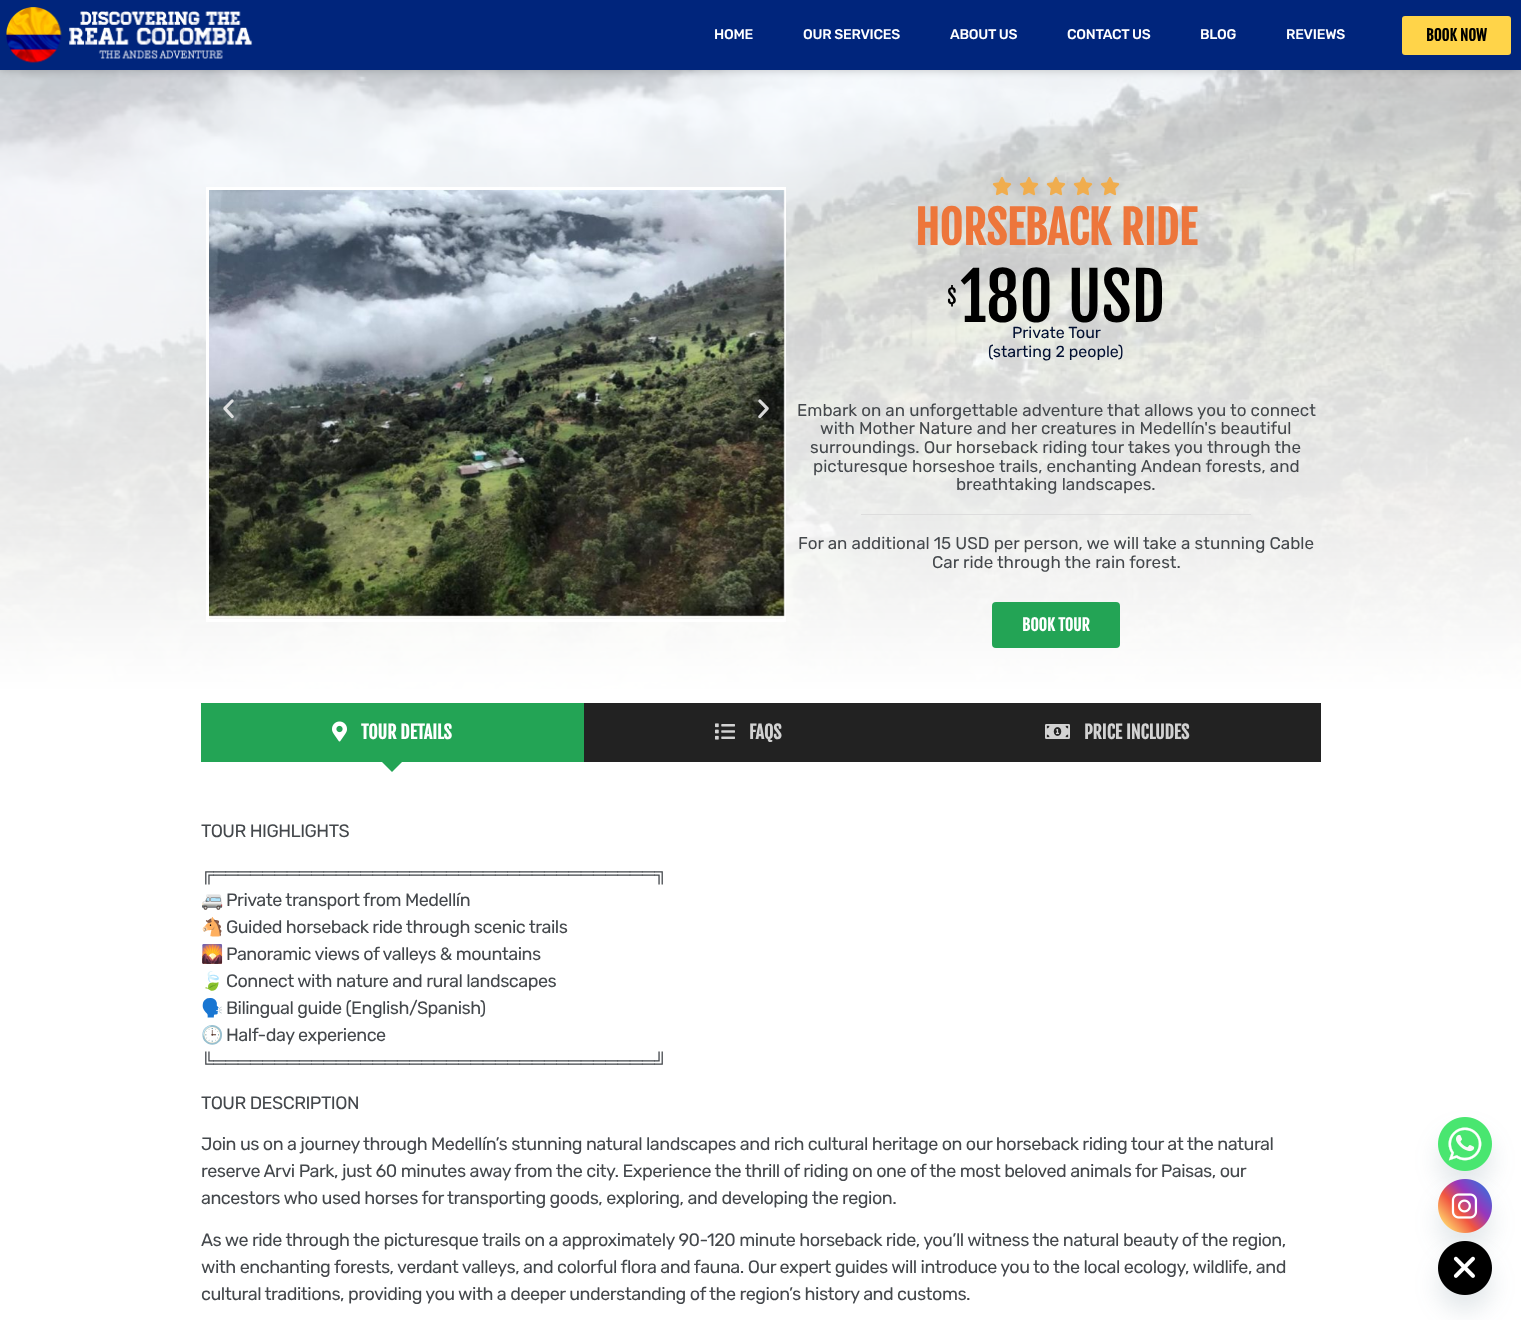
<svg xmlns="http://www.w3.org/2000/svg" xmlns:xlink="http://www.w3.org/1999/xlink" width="1521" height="1320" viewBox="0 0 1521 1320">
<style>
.cls-1{font:500 14px Rubik;letter-spacing:-0.25px;fill:#ffffff}
.cls-2{font:bold 15px Fjalla One;fill:#000000}
.cls-3{font:bold 45px Fjalla One;fill:#ed763b}
.cls-4{font:20px Fjalla One;fill:#000000}
.cls-5{font:65px Fjalla One;fill:#000000}
.cls-6{font:16px Rubik;fill:#000f31}
.cls-7{font:17px Rubik;fill:#44484c}
.cls-8{font:bold 16px Fjalla One;fill:#ffffff}
.cls-9{font:bold 18px Fjalla One;fill:#ffffff}
.cls-10{font:bold 18px Fjalla One;fill:#d2d2d2}
.cls-11{font:18px Rubik;letter-spacing:-0.5px;fill:#44484c}
.cls-12{font:18px Liberation Sans;letter-spacing:-0.5px;fill:#44484c}
.cls-13{font:18px Noto Color Emoji;letter-spacing:-0.5px;fill:#44484c}
</style>
<defs>
<clipPath id="clip1"><rect x="201" y="762" width="1120" height="546"/></clipPath>
</defs>
<rect width="100%" height="100%" fill="#ffffff"/>
<image xlink:href="image1.png" x="0" y="70" width="1521" height="623"/>
<rect fill="#000000" fill-opacity="0.23" filter="blur(5px)" x="0" y="0" width="1521" height="70"/>
<rect fill="#00257c" x="0" y="0" width="1521" height="70"/>
<image xlink:href="image0.png" x="6" y="7" width="247" height="56"/>
<rect fill="#ffd449" x="1402" y="16" width="109" height="39" rx="3"/>
<rect fill="none" stroke="#ffffff" stroke-width="3" x="207.5" y="188.5" width="577" height="432"/>
<image xlink:href="image2.png" x="209" y="190" width="576" height="428"/>
<image xlink:href="image3.png" x="223" y="399" width="11" height="20"/>
<image xlink:href="image4.png" x="758" y="399" width="11" height="20"/>
<image xlink:href="image6.png" x="993" y="177" width="18" height="18"/>
<image xlink:href="image5.png" x="992" y="177" width="20" height="19"/>
<image xlink:href="image8.png" x="1020" y="177" width="18" height="18"/>
<image xlink:href="image7.png" x="1019" y="177" width="20" height="19"/>
<image xlink:href="image10.png" x="1047" y="177" width="18" height="18"/>
<image xlink:href="image9.png" x="1046" y="177" width="20" height="19"/>
<image xlink:href="image12.png" x="1074" y="177" width="18" height="18"/>
<image xlink:href="image11.png" x="1073" y="177" width="20" height="19"/>
<image xlink:href="image14.png" x="1101" y="177" width="18" height="18"/>
<image xlink:href="image13.png" x="1100" y="177" width="20" height="19"/>
<rect fill="#dddddd" x="861" y="514" width="390" height="1"/>
<rect fill="#23a455" x="992" y="602" width="128" height="46" rx="4"/>
<rect fill="#23a455" x="201" y="703" width="383" height="59"/>
<image xlink:href="image15.png" x="332" y="721" width="15" height="21"/>
<path fill="#23a455" d="M382 762H402L392 772Z"/>
<rect fill="#222222" x="584" y="703" width="737" height="59"/>
<image xlink:href="image16.png" x="715" y="723" width="20" height="17"/>
<image xlink:href="image17.png" x="1045" y="724" width="25" height="15"/>
<rect fill="#49687e" fill-opacity="0.16" filter="blur(12px)" x="1438" y="1133" width="54" height="54" rx="27"/>
<image xlink:href="image18.png" x="1438" y="1117" width="54" height="54"/>
<rect fill="#49687e" fill-opacity="0.16" filter="blur(12px)" x="1438" y="1195" width="54" height="54" rx="27"/>
<image xlink:href="image19.png" x="1438" y="1179" width="54" height="54"/>
<rect fill="#49687e" fill-opacity="0.16" filter="blur(12px)" x="1438" y="1257" width="54" height="54" rx="27"/>
<image xlink:href="image20.png" x="1438" y="1241" width="54" height="54"/>
<text class="cls-1" x="714" y="39">HOME</text>
<text class="cls-1" x="803" y="39">OUR SERVICES</text>
<text class="cls-1" x="950" y="39">ABOUT US</text>
<text class="cls-1" x="1067" y="39">CONTACT US</text>
<text class="cls-1" x="1200" y="39">BLOG</text>
<text class="cls-1" x="1286" y="39">REVIEWS</text>
<text class="cls-2" x="1426" y="41">BOOK NOW</text>
<text class="cls-3" x="915" y="245">HORSEBACK RIDE</text>
<text class="cls-4" x="947" y="304">$</text>
<text class="cls-5" x="960" y="322">180 USD</text>
<text class="cls-6" x="1012" y="338">Private Tour</text>
<text class="cls-6" x="988" y="357">(starting 2 people)</text>
<text class="cls-7" x="797" y="416">Embark on an unforgettable adventure that allows you to connect</text>
<text class="cls-7" x="820" y="434">with Mother Nature and her creatures in Medellín's beautiful</text>
<text class="cls-7" x="810" y="453">surroundings. Our horseback riding tour takes you through the</text>
<text class="cls-7" x="813" y="472">picturesque horseshoe trails, enchanting Andean forests, and</text>
<text class="cls-7" x="956" y="490">breathtaking landscapes.</text>
<text class="cls-7" x="798" y="549">For an additional 15 USD per person, we will take a stunning Cable</text>
<text class="cls-7" x="932" y="568">Car ride through the rain forest.</text>
<text class="cls-8" x="1022" y="631">BOOK TOUR</text>
<text class="cls-9" x="361" y="739">TOUR DETAILS</text>
<text class="cls-10" x="749" y="739">FAQS</text>
<text class="cls-10" x="1084" y="739">PRICE INCLUDES</text>
<text class="cls-11" x="201" y="837">TOUR HIGHLIGHTS</text>
<text class="cls-12" x="201" y="879">╔════════════════════════════════════╗</text>
<g clip-path="url(#clip1)">
<text class="cls-13" x="201" y="906">🚐</text>
</g>
<text class="cls-11" x="226" y="906">Private transport from Medellín</text>
<g clip-path="url(#clip1)">
<text class="cls-13" x="201" y="933">🐴</text>
</g>
<text class="cls-11" x="226" y="933">Guided horseback ride through scenic trails</text>
<g clip-path="url(#clip1)">
<text class="cls-13" x="201" y="960">🌄</text>
</g>
<text class="cls-11" x="226" y="960">Panoramic views of valleys &amp; mountains</text>
<g clip-path="url(#clip1)">
<text class="cls-13" x="201" y="987">🍃</text>
</g>
<text class="cls-11" x="226" y="987">Connect with nature and rural landscapes</text>
<g clip-path="url(#clip1)">
<text class="cls-13" x="201" y="1014">🗣️</text>
</g>
<text class="cls-11" x="226" y="1014">Bilingual guide (English/Spanish)</text>
<g clip-path="url(#clip1)">
<text class="cls-13" x="201" y="1041">🕒</text>
</g>
<text class="cls-11" x="226" y="1041">Half-day experience</text>
<text class="cls-12" x="201" y="1068">╚════════════════════════════════════╝</text>
<text class="cls-11" x="201" y="1109">TOUR DESCRIPTION</text>
<text class="cls-11"><tspan x="201" y="1150">Join us on a journey through Medellín’s stunning natural landscapes and rich cultural heritage on our horseback riding tour at the natural</tspan><tspan x="201" y="1177">reserve Arvi Park, just 60 minutes away from the city. Experience the thrill of riding on one of the most beloved animals for Paisas, our</tspan><tspan x="201" y="1204">ancestors who used horses for transporting goods, exploring, and developing the region.</tspan></text>
<text class="cls-11"><tspan x="201" y="1246">As we ride through the picturesque trails on a approximately 90-120 minute horseback ride, you’ll witness the natural beauty of the region,</tspan><tspan x="201" y="1273">with enchanting forests, verdant valleys, and colorful flora and fauna. Our expert guides will introduce you to the local ecology, wildlife, and</tspan><tspan x="201" y="1300">cultural traditions, providing you with a deeper understanding of the region’s history and customs.</tspan></text>
</svg>
